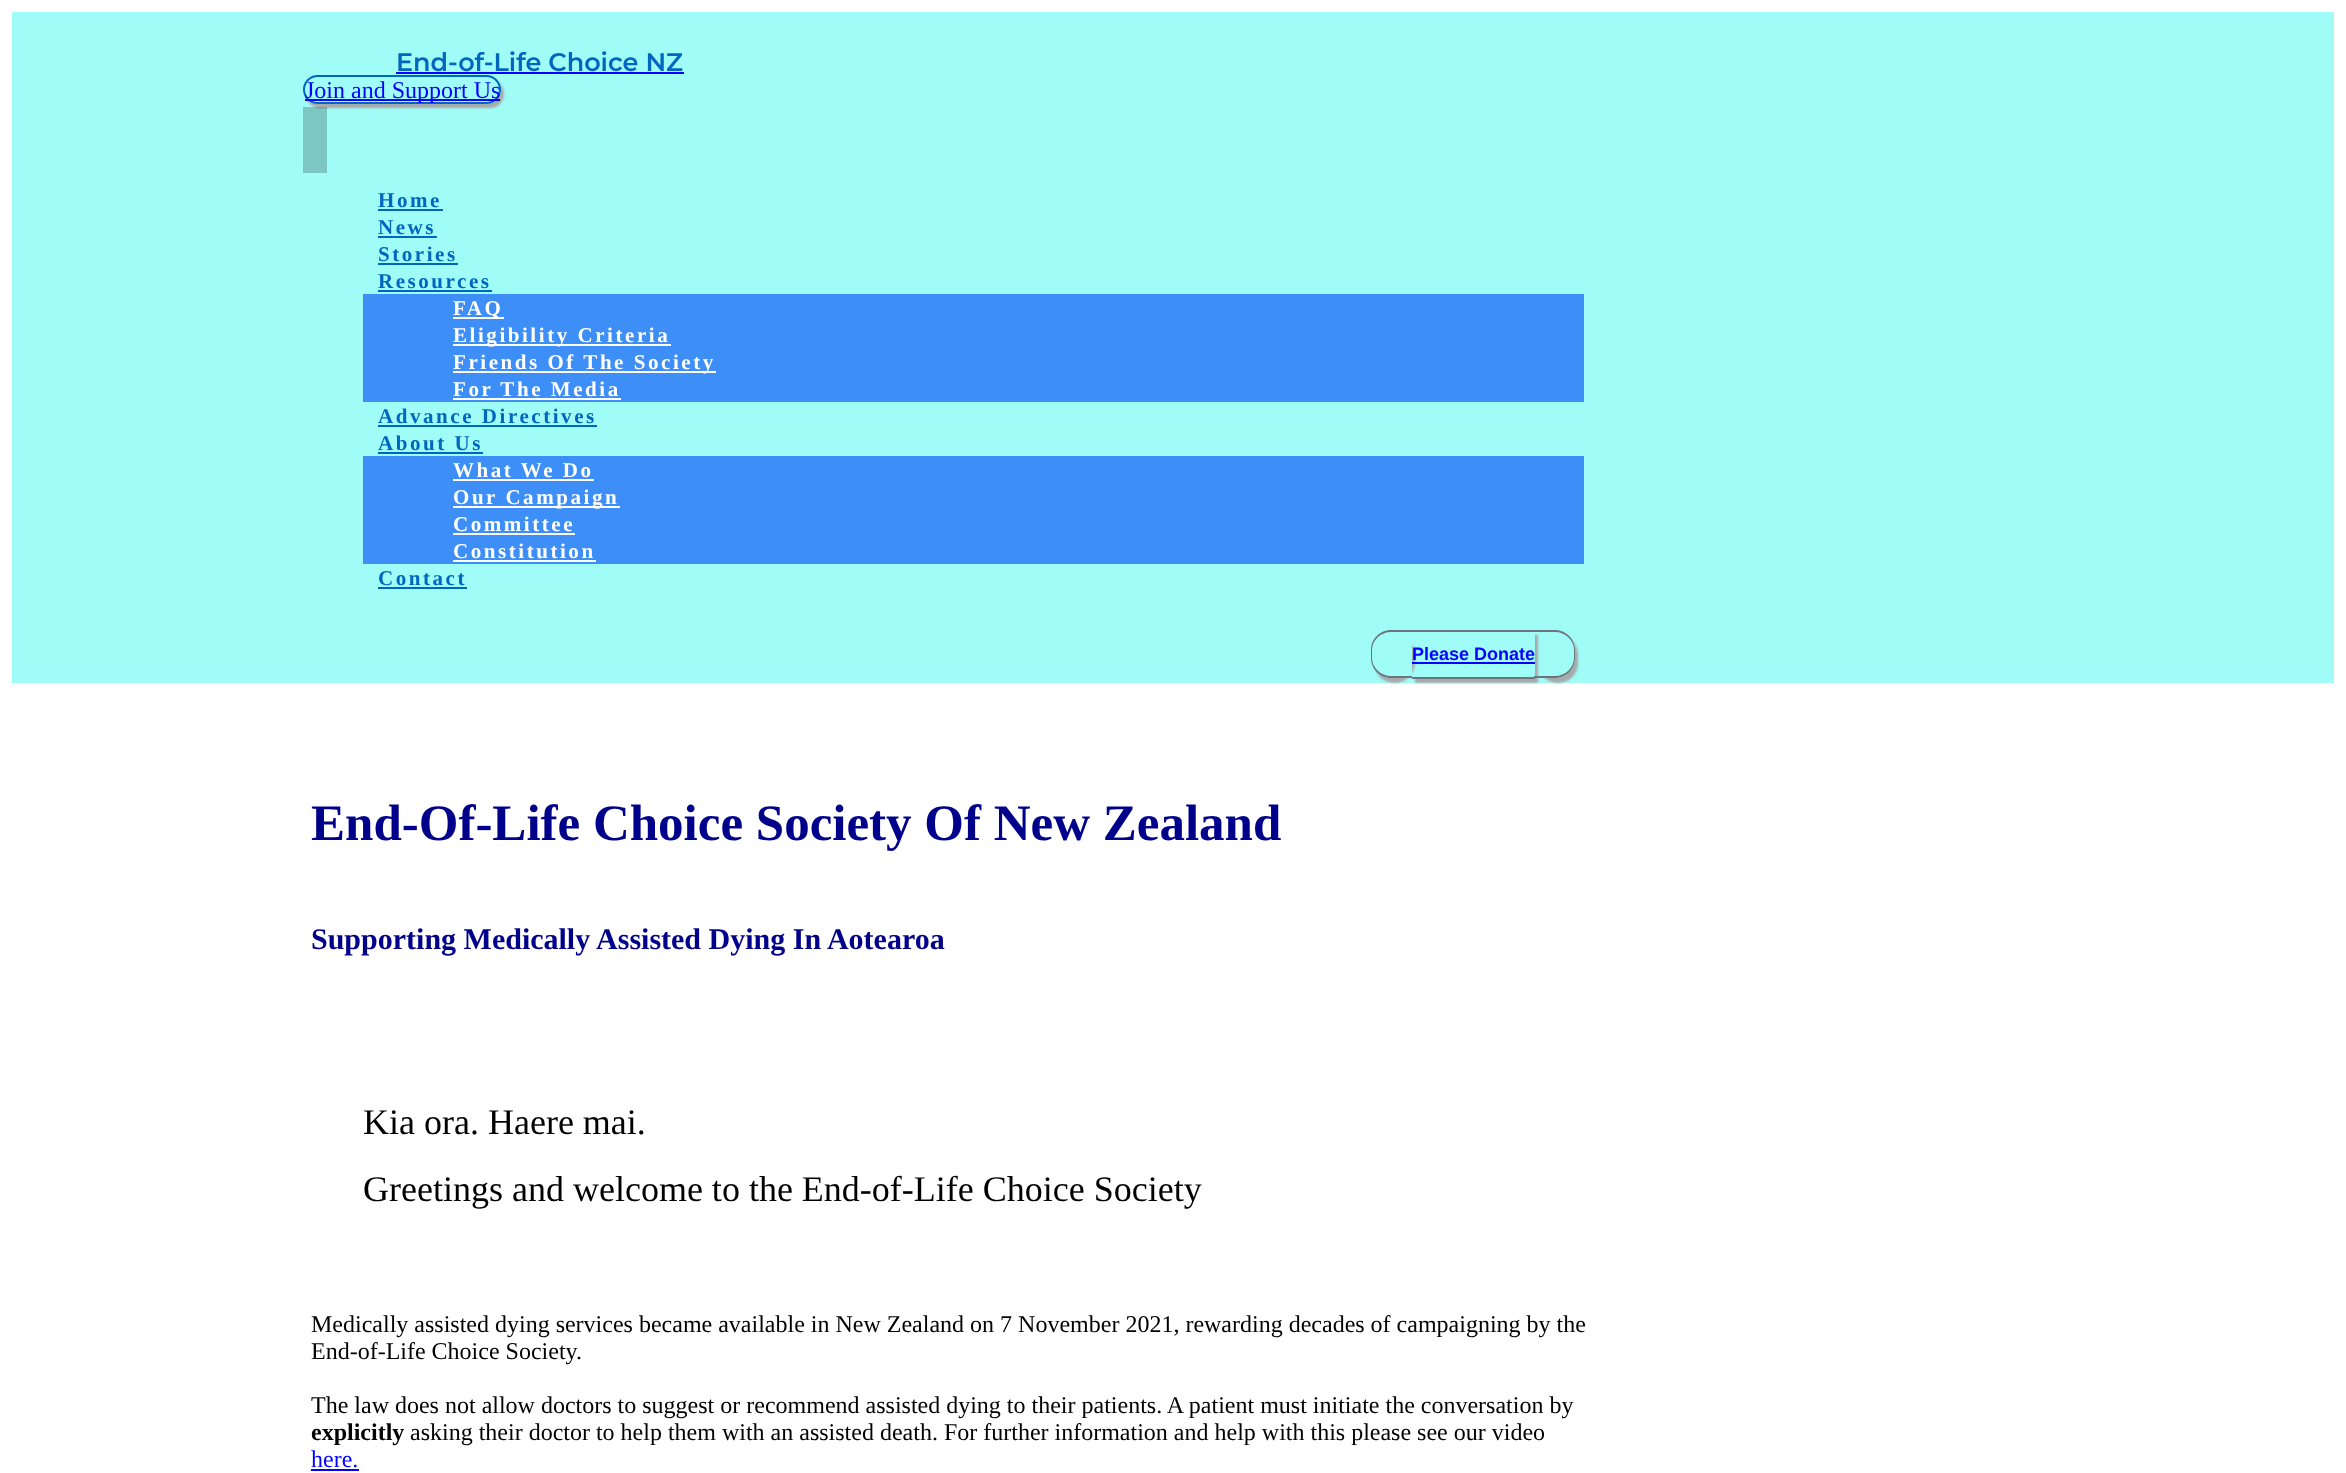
<svg xmlns="http://www.w3.org/2000/svg" xmlns:xlink="http://www.w3.org/1999/xlink" width="2346" height="1473" viewBox="0 0 2346 1473">
<style>
.cls-1{font:600 25.5px Montserrat;fill:#0066bf}
.cls-2{font:24px Liberation Serif;fill:#0200ff}
.cls-3{font:bold 21px Liberation Serif;letter-spacing:2.55px;fill:#0066bf}
.cls-4{font:bold 21px Liberation Serif;letter-spacing:2.55px;fill:#ffffff}
.cls-5{font:bold 18px Liberation Sans;fill:#0200ff}
.cls-6{font:bold 51px Liberation Serif;fill:#00008b}
.cls-7{font:bold 30px Liberation Serif;fill:#00008b}
.cls-8{font:36px Liberation Serif;fill:#000000}
.cls-9{font:24px Liberation Serif;fill:#000000}
.cls-10{font:bold 24px Liberation Serif;fill:#000000}
</style>
<defs>
<clipPath id="clip1"><path d="M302 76H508V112H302ZM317.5 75H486.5C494.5 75 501 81.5 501 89.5C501 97.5 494.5 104 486.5 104H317.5C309.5 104 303 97.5 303 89.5C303 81.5 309.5 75 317.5 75Z" clip-rule="evenodd"/></clipPath>
<clipPath id="clip2"><path d="M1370 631H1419V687H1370ZM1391.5 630H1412V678H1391.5C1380 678 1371 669 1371 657.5V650.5C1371 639 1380 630 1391.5 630Z" clip-rule="evenodd"/></clipPath>
<clipPath id="clip3"><path d="M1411 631H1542V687H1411ZM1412 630H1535V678H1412Z" clip-rule="evenodd"/></clipPath>
<clipPath id="clip4"><path d="M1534 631H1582V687H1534ZM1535 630H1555C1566 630 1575 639 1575 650V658C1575 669 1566 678 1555 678H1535Z" clip-rule="evenodd"/></clipPath>
</defs>
<rect width="100%" height="100%" fill="#ffffff"/>
<rect fill="#a0fcf7" x="12" y="12" width="2322" height="671"/>
<rect fill="#0200ff" x="396" y="72" width="288" height="2"/>
<g clip-path="url(#clip1)">
<rect fill="#a6aaab" filter="blur(1px)" x="306" y="80" width="198" height="28" rx="14"/>
</g>
<rect fill="none" stroke="#0066bf" stroke-width="2" x="304" y="76" width="196" height="27" rx="13.5"/>
<rect fill="#0200ff" x="305" y="99" width="195" height="2"/>
<rect fill="#000000" fill-opacity="0.21" x="303" y="107" width="24" height="66"/>
<rect fill="#0066bf" x="378" y="209" width="65" height="2"/>
<rect fill="#0066bf" x="378" y="236" width="59" height="2"/>
<rect fill="#0066bf" x="378" y="263" width="80" height="2"/>
<rect fill="#0066bf" x="378" y="290" width="114" height="2"/>
<rect fill="#3e8ef7" x="363" y="294" width="1221" height="108"/>
<rect fill="#ffffff" x="453" y="317" width="51" height="2"/>
<rect fill="#ffffff" x="453" y="344" width="218" height="2"/>
<rect fill="#ffffff" x="453" y="371" width="263" height="2"/>
<rect fill="#ffffff" x="453" y="398" width="168" height="2"/>
<rect fill="#0066bf" x="378" y="425" width="219" height="2"/>
<rect fill="#0066bf" x="378" y="452" width="105" height="2"/>
<rect fill="#3e8ef7" x="363" y="456" width="1221" height="108"/>
<rect fill="#ffffff" x="453" y="479" width="141" height="2"/>
<rect fill="#ffffff" x="453" y="506" width="167" height="2"/>
<rect fill="#ffffff" x="453" y="533" width="122" height="2"/>
<rect fill="#ffffff" x="453" y="560" width="143" height="2"/>
<rect fill="#0066bf" x="378" y="587" width="89" height="2"/>
<g clip-path="url(#clip2)">
<rect fill="#a6aaab" filter="blur(1px)" x="1374" y="635" width="41" height="48" rx="20.5"/>
</g>
<path fill="#6c757d" fill-rule="evenodd" d="M1391 630H1412V678H1391C1380 678 1371 669 1371 658V650C1371 639 1380 630 1391 630ZM1391 632H1412V676H1391C1381 676 1372 668 1372 658V650C1372 640 1381 632 1391 632Z"/>
<g clip-path="url(#clip3)">
<rect fill="#a6aaab" filter="blur(1px)" x="1415" y="635" width="123" height="48"/>
</g>
<rect fill="#6c757d" x="1412" y="630" width="123" height="2"/>
<rect fill="#6c757d" x="1412" y="677" width="123" height="2"/>
<g clip-path="url(#clip4)">
<rect fill="#a6aaab" filter="blur(1px)" x="1538" y="635" width="40" height="48" rx="20"/>
</g>
<path fill="#6c757d" fill-rule="evenodd" d="M1534 630H1555C1566 630 1575 639 1575 650V658C1575 669 1566 678 1555 678H1534ZM1534 632H1555C1565 632 1574 640 1574 650V658C1574 668 1565 676 1555 676H1534Z"/>
<rect fill="#0200ff" x="1412" y="662" width="123" height="2"/>
<rect fill="#0200ff" x="311" y="1469" width="48" height="2"/>
<text class="cls-1" x="396" y="71">End-of-Life Choice NZ</text>
<text class="cls-2" x="305" y="98">Join and Support Us</text>
<text class="cls-3"><tspan x="378" y="207">Home</tspan><tspan x="378" y="234">News</tspan><tspan x="378" y="261">Stories</tspan><tspan x="378" y="288">Resources</tspan></text>
<text class="cls-4"><tspan x="453" y="315">FAQ</tspan><tspan x="453" y="342">Eligibility Criteria</tspan><tspan x="453" y="369">Friends Of The Society</tspan><tspan x="453" y="396">For The Media</tspan></text>
<text class="cls-3"><tspan x="378" y="423">Advance Directives</tspan><tspan x="378" y="450">About Us</tspan></text>
<text class="cls-4"><tspan x="453" y="477">What We Do</tspan><tspan x="453" y="504">Our Campaign</tspan><tspan x="453" y="531">Committee</tspan><tspan x="453" y="558">Constitution</tspan></text>
<text class="cls-3" x="378" y="585">Contact</text>
<text class="cls-5" x="1412" y="660">Please Donate</text>
<text class="cls-6" x="311" y="840">End-Of-Life Choice Society Of New Zealand</text>
<text class="cls-7" x="311" y="949">Supporting Medically Assisted Dying In Aotearoa</text>
<text class="cls-8"><tspan x="363" y="1134">Kia ora. Haere mai.</tspan><tspan x="363" y="1201">Greetings and welcome to the End-of-Life Choice Society</tspan></text>
<text class="cls-9"><tspan x="311" y="1332">Medically assisted dying services became available in New Zealand on 7 November 2021, rewarding decades of campaigning by the</tspan><tspan x="311" y="1359">End-of-Life Choice Society.</tspan></text>
<text class="cls-9" x="311" y="1413">The law does not allow doctors to suggest or recommend assisted dying to their patients. A patient must initiate the conversation by</text>
<text class="cls-10" x="311" y="1440">explicitly</text>
<text class="cls-9" x="410" y="1440">asking their doctor to help them with an assisted death. For further information and help with this please see our video</text>
<text class="cls-2" x="311" y="1467">here.</text>
</svg>
